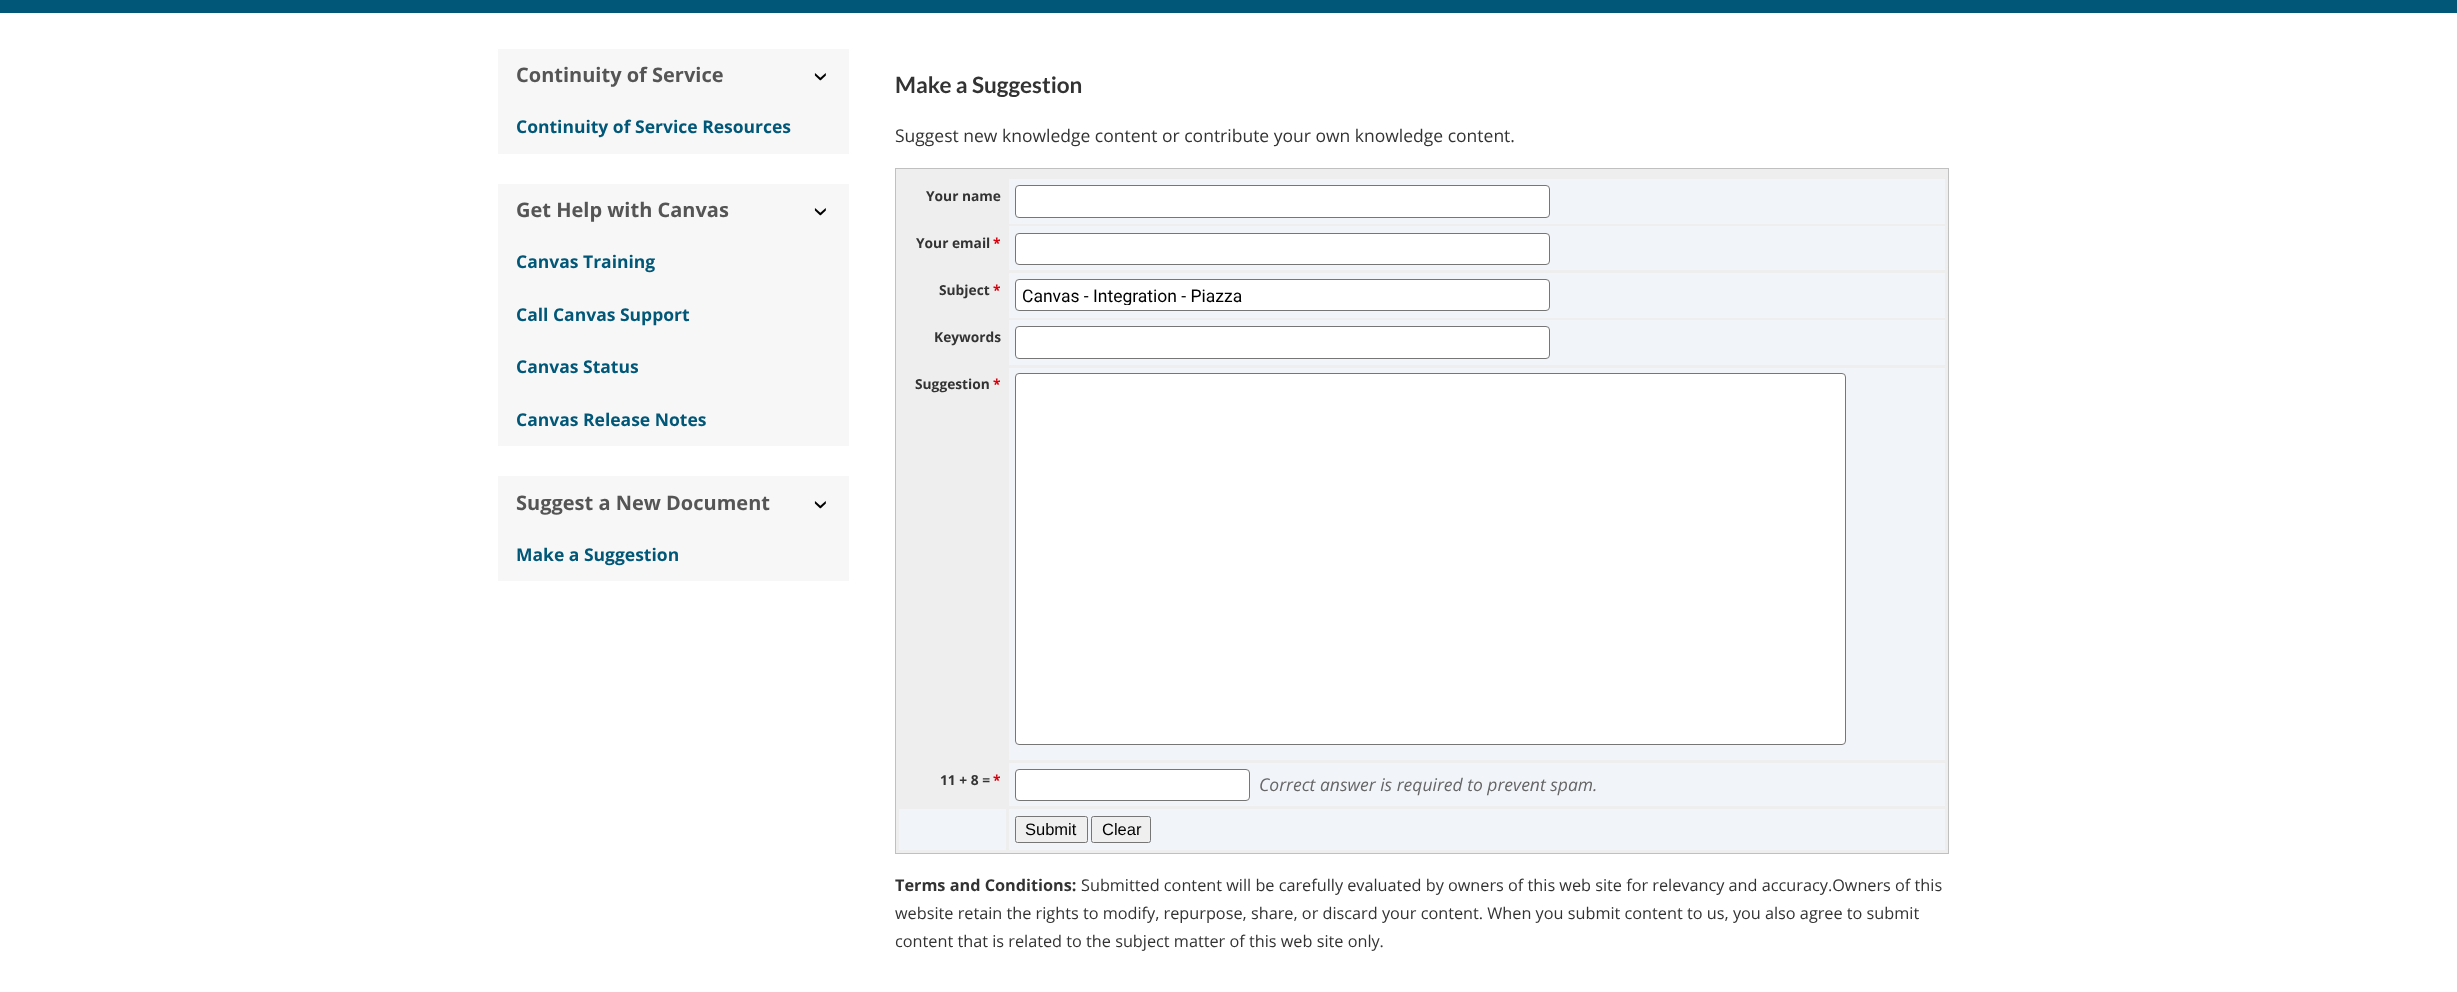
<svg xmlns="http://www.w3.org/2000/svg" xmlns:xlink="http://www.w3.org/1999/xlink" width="2457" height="992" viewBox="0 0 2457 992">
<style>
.cls-1{font:bold 20px Open Sans;fill:#555555}
.cls-2{font:28px Liberation Sans;fill:#000000}
.cls-3{font:bold 17.5px Open Sans;fill:#005777}
.cls-4{font:bold 22.5px Lato;fill:#333333}
.cls-5{font:17.5px Open Sans;fill:#333333}
.cls-6{font:bold 13.75px Open Sans;fill:#333333}
.cls-7{font:bold 13.75px Open Sans;fill:#d8000c}
.cls-8{font:17.5px Roboto;fill:#000000}
.cls-9{font:italic 17.5px Open Sans;fill:#666666}
.cls-10{font:16.5px Liberation Sans;fill:#000000}
.cls-11{font:bold 16.25px Open Sans;fill:#333333}
.cls-12{font:16.25px Open Sans;fill:#333333}
</style>
<defs>
<clipPath id="clip1"><rect x="1021" y="285" width="523" height="20"/></clipPath>
</defs>
<rect width="100%" height="100%" fill="#ffffff"/>
<rect fill="#005777" x="0" y="0" width="2457" height="13"/>
<rect fill="#f7f7f7" x="498" y="49" width="351" height="105"/>
<rect fill="#f7f7f7" x="498" y="184" width="351" height="262"/>
<rect fill="#f7f7f7" x="498" y="476" width="351" height="105"/>
<rect fill="#eeeeee" stroke="#c0c0c0" x="895.5" y="168.5" width="1053" height="685"/>
<rect fill="#f1f5fa" x="1009" y="179" width="936" height="45"/>
<rect fill="#ffffff" stroke="#767676" x="1015.5" y="185.5" width="534" height="32" rx="3.5"/>
<rect fill="#f1f5fa" x="1009" y="226" width="936" height="44"/>
<rect fill="#ffffff" stroke="#767676" x="1015.5" y="233.5" width="534" height="31" rx="3.5"/>
<rect fill="#f1f5fa" x="1009" y="273" width="936" height="45"/>
<rect fill="#ffffff" stroke="#767676" x="1015.5" y="279.5" width="534" height="31" rx="3.5"/>
<rect fill="#f1f5fa" x="1009" y="320" width="936" height="45"/>
<rect fill="#ffffff" stroke="#767676" x="1015.5" y="326.5" width="534" height="32" rx="3.5"/>
<rect fill="#f1f5fa" x="1009" y="368" width="936" height="392"/>
<rect fill="#ffffff" stroke="#767676" x="1015.5" y="373.5" width="830" height="371" rx="3.5"/>
<rect fill="#f1f5fa" x="1009" y="763" width="936" height="43"/>
<rect fill="#ffffff" stroke="#767676" x="1015.5" y="769.5" width="234" height="31" rx="3.5"/>
<rect fill="#f1f5fa" x="899" y="809" width="107" height="41"/>
<rect fill="#f1f5fa" x="1009" y="809" width="936" height="41"/>
<rect fill="#efefef" stroke="#767676" x="1015.5" y="816.5" width="72" height="26" rx="2"/>
<rect fill="#efefef" stroke="#767676" x="1091.5" y="816.5" width="59" height="26" rx="2"/>
<text class="cls-1" x="516" y="82">Continuity of Service</text>
<text class="cls-2" x="813" y="72" transform="rotate(90 813 72)">›</text>
<text class="cls-3" x="516" y="133">Continuity of Service Resources</text>
<text class="cls-1" x="516" y="217">Get Help with Canvas</text>
<text class="cls-2" x="813" y="207" transform="rotate(90 813 207)">›</text>
<text class="cls-3" x="516" y="268">Canvas Training</text>
<text class="cls-3" x="516" y="321">Call Canvas Support</text>
<text class="cls-3" x="516" y="373">Canvas Status</text>
<text class="cls-3" x="516" y="426">Canvas Release Notes</text>
<text class="cls-1" x="516" y="510">Suggest a New Document</text>
<text class="cls-2" x="813" y="500" transform="rotate(90 813 500)">›</text>
<text class="cls-3" x="516" y="561">Make a Suggestion</text>
<text class="cls-4" x="895" y="93">Make a Suggestion</text>
<text class="cls-5" x="895" y="142">Suggest new knowledge content or contribute your own knowledge content.</text>
<text class="cls-6" x="926" y="201">Your name</text>
<text class="cls-6" x="916" y="248">Your email</text>
<text class="cls-7" x="993" y="248">*</text>
<text class="cls-6" x="939" y="295">Subject</text>
<text class="cls-7" x="993" y="295">*</text>
<g clip-path="url(#clip1)">
<text class="cls-8" x="1022" y="302">Canvas - Integration - Piazza</text>
</g>
<text class="cls-6" x="934" y="342">Keywords</text>
<text class="cls-6" x="915" y="389">Suggestion</text>
<text class="cls-7" x="993" y="389">*</text>
<text class="cls-6" x="940" y="785">11 + 8 =</text>
<text class="cls-7" x="993" y="785">*</text>
<text class="cls-9" x="1259" y="791">Correct answer is required to prevent spam.</text>
<text class="cls-10" x="1025" y="835">Submit</text>
<text class="cls-10" x="1102" y="835">Clear</text>
<text class="cls-11" x="895" y="891">Terms and Conditions:</text>
<text class="cls-12" x="1081" y="891">Submitted content will be carefully evaluated by owners of this web site for relevancy and accuracy.Owners of this</text>
<text class="cls-12"><tspan x="895" y="919">website retain the rights to modify, repurpose, share, or discard your content. When you submit content to us, you also agree to submit</tspan><tspan x="895" y="947">content that is related to the subject matter of this web site only.</tspan></text>
</svg>
